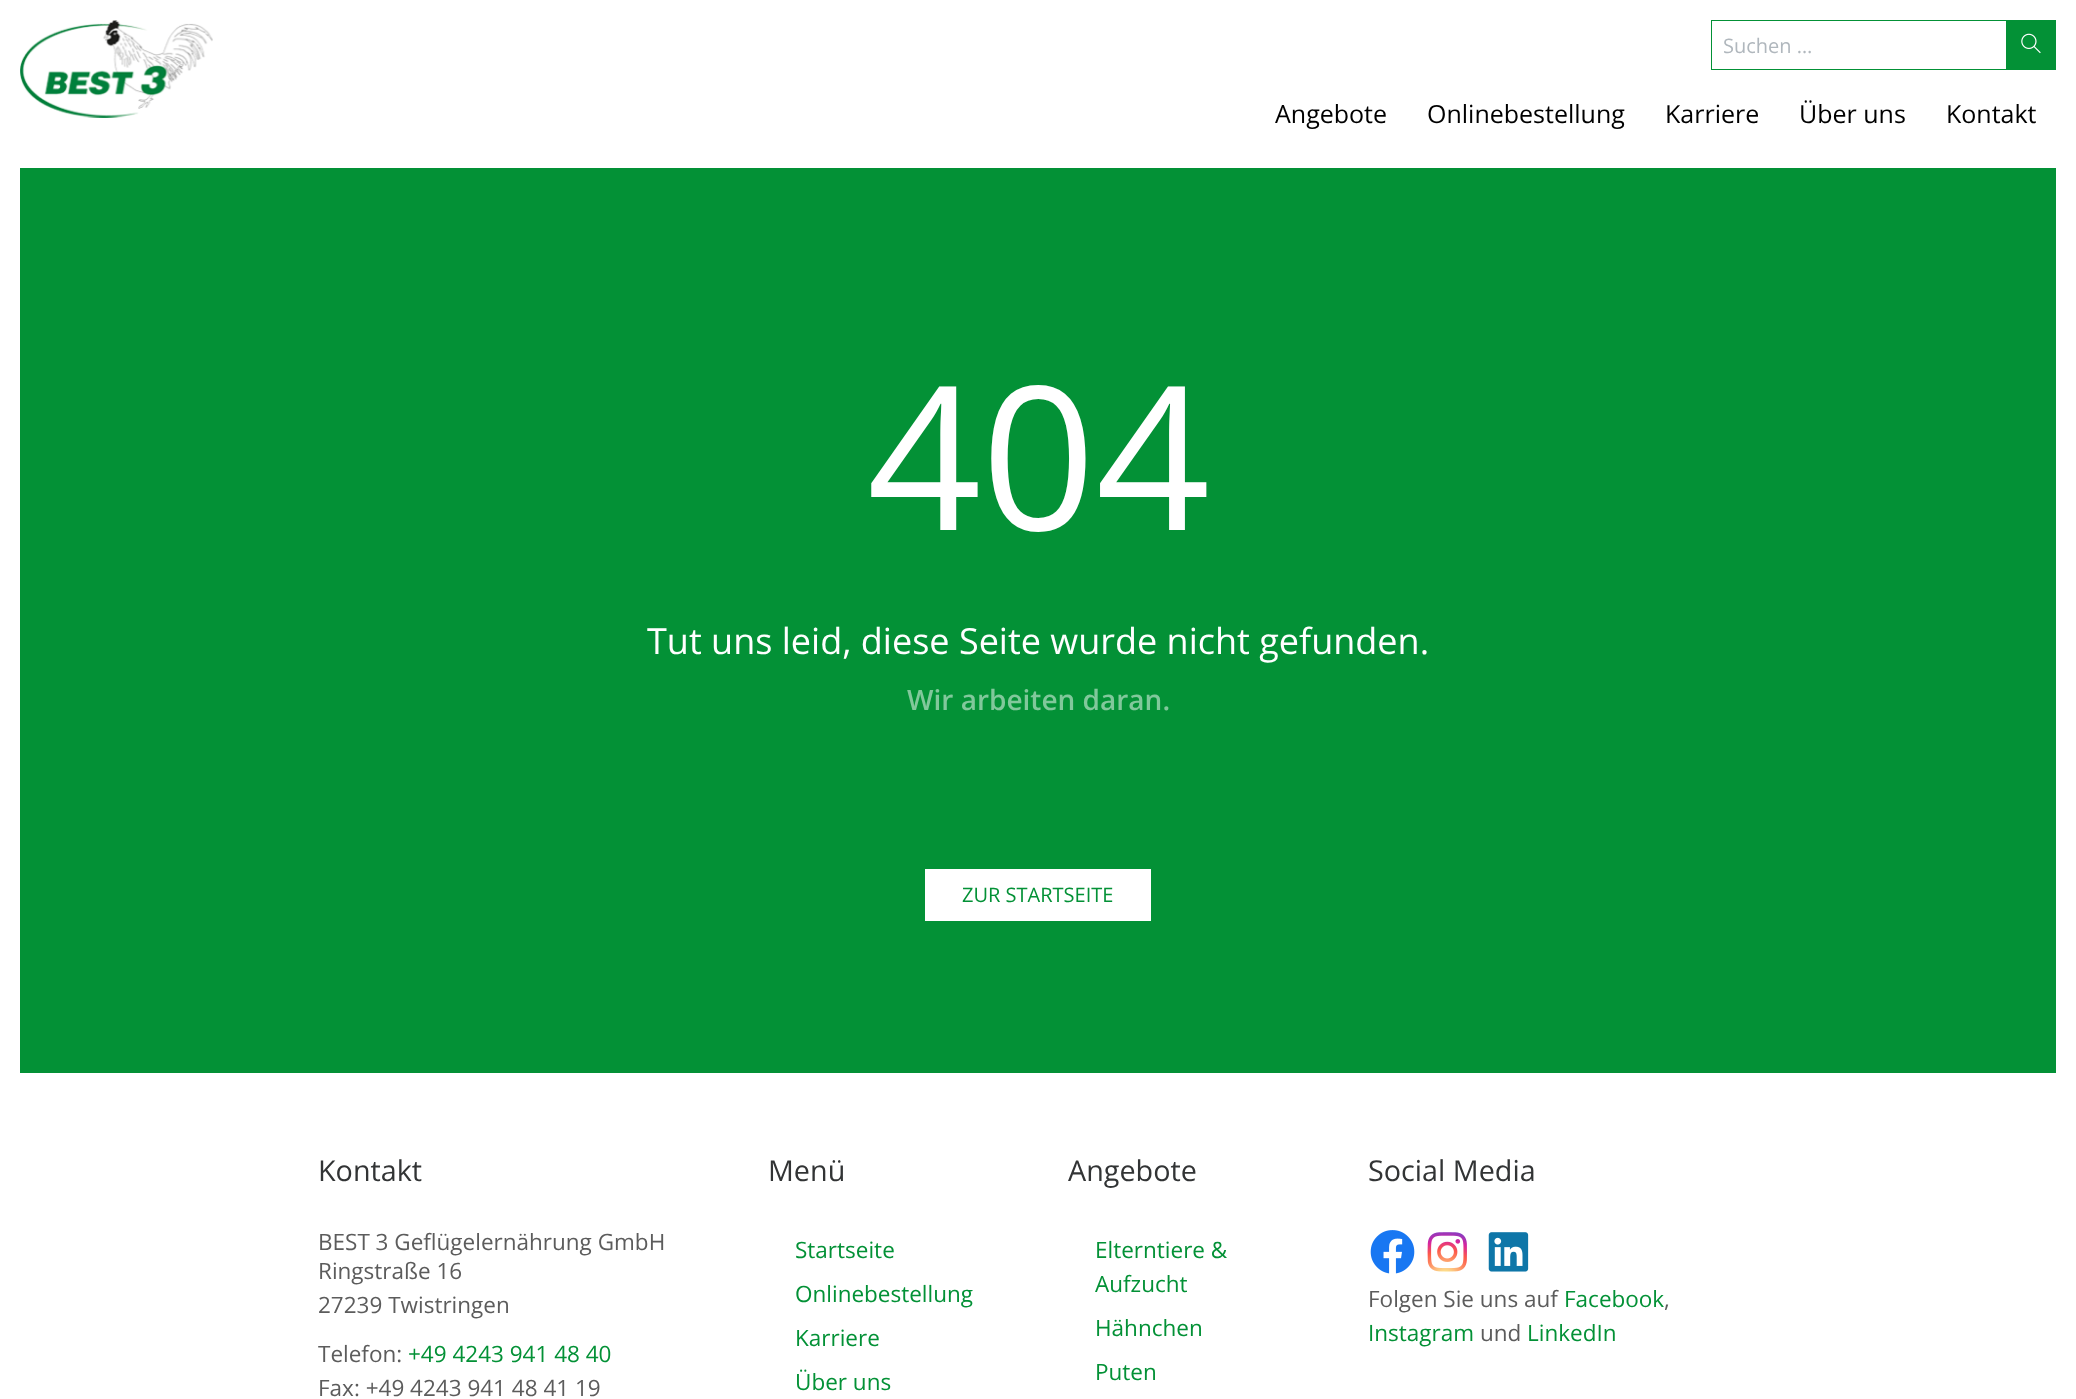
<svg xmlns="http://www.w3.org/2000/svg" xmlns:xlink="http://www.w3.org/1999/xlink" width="2076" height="1399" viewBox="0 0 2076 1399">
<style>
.cls-1{font:20px Open Sans;fill:#b0b7bd}
.cls-2{font:25px Open Sans;fill:#000000}
.cls-3{font:200px Open Sans;fill:#ffffff}
.cls-4{font:36px Open Sans;fill:#ffffff}
.cls-5{font:600 28px Open Sans;fill:#81c89b}
.cls-6{font:20px Open Sans;fill:#039136}
.cls-7{font:28.75px Open Sans;fill:#323435}
.cls-8{font:22.5px Open Sans;fill:#5c5c5c}
.cls-9{font:22.5px Open Sans;fill:#039136}
</style>
<rect width="100%" height="100%" fill="#ffffff"/>
<image xlink:href="image0.png" x="20" y="20" width="193" height="98"/>
<rect fill="none" stroke="#039136" x="1711.5" y="20.5" width="344" height="49"/>
<rect fill="#039136" x="2006" y="21" width="49" height="48"/>
<image xlink:href="image1.png" x="2021" y="33" width="20" height="21"/>
<rect fill="#039136" x="20" y="168" width="2036" height="905"/>
<rect fill="#ffffff" x="925" y="869" width="226" height="52"/>
<image xlink:href="image2.png" x="1370" y="1230" width="45" height="44"/>
<image xlink:href="image3.png" x="1427" y="1232" width="40" height="40"/>
<image xlink:href="image4.png" x="1488" y="1232" width="41" height="40"/>
<text class="cls-1" x="1723" y="53">Suchen …</text>
<text class="cls-2" x="1275" y="123">Angebote</text>
<text class="cls-2" x="1427" y="123">Onlinebestellung</text>
<text class="cls-2" x="1665" y="123">Karriere</text>
<text class="cls-2" x="1799" y="123">Über uns</text>
<text class="cls-2" x="1946" y="123">Kontakt</text>
<text class="cls-3" x="867" y="530">404</text>
<text class="cls-4" x="647" y="654">Tut uns leid, diese Seite wurde nicht gefunden.</text>
<text class="cls-5" x="907" y="710">Wir arbeiten daran.</text>
<text class="cls-6" x="962" y="902">ZUR STARTSEITE</text>
<text class="cls-7" x="318" y="1181">Kontakt</text>
<text class="cls-8"><tspan x="318" y="1250">BEST 3 Geflügelernährung GmbH</tspan><tspan x="318" y="1279">Ringstraße 16</tspan><tspan x="318" y="1313">27239 Twistringen</tspan></text>
<text class="cls-8" x="318" y="1362">Telefon:</text>
<text class="cls-9" x="408" y="1362">+49 4243 941 48 40</text>
<text class="cls-8" x="318" y="1396">Fax: +49 4243 941 48 41 19</text>
<text class="cls-7" x="768" y="1181">Menü</text>
<text class="cls-9"><tspan x="795" y="1258">Startseite</tspan><tspan x="795" y="1302">Onlinebestellung</tspan><tspan x="795" y="1346">Karriere</tspan><tspan x="795" y="1390">Über uns</tspan></text>
<text class="cls-7" x="1068" y="1181">Angebote</text>
<text class="cls-9"><tspan x="1095" y="1258">Elterntiere &amp;</tspan><tspan x="1095" y="1292">Aufzucht</tspan><tspan x="1095" y="1336">Hähnchen</tspan><tspan x="1095" y="1380">Puten</tspan></text>
<text class="cls-7" x="1368" y="1181">Social Media</text>
<text class="cls-8" x="1368" y="1307">Folgen Sie uns auf</text>
<text class="cls-9" x="1564" y="1307">Facebook</text>
<text class="cls-8" x="1664" y="1307">,</text>
<text class="cls-9" x="1368" y="1341">Instagram</text>
<text class="cls-8" x="1480" y="1341">und</text>
<text class="cls-9" x="1527" y="1341">LinkedIn</text>
</svg>
